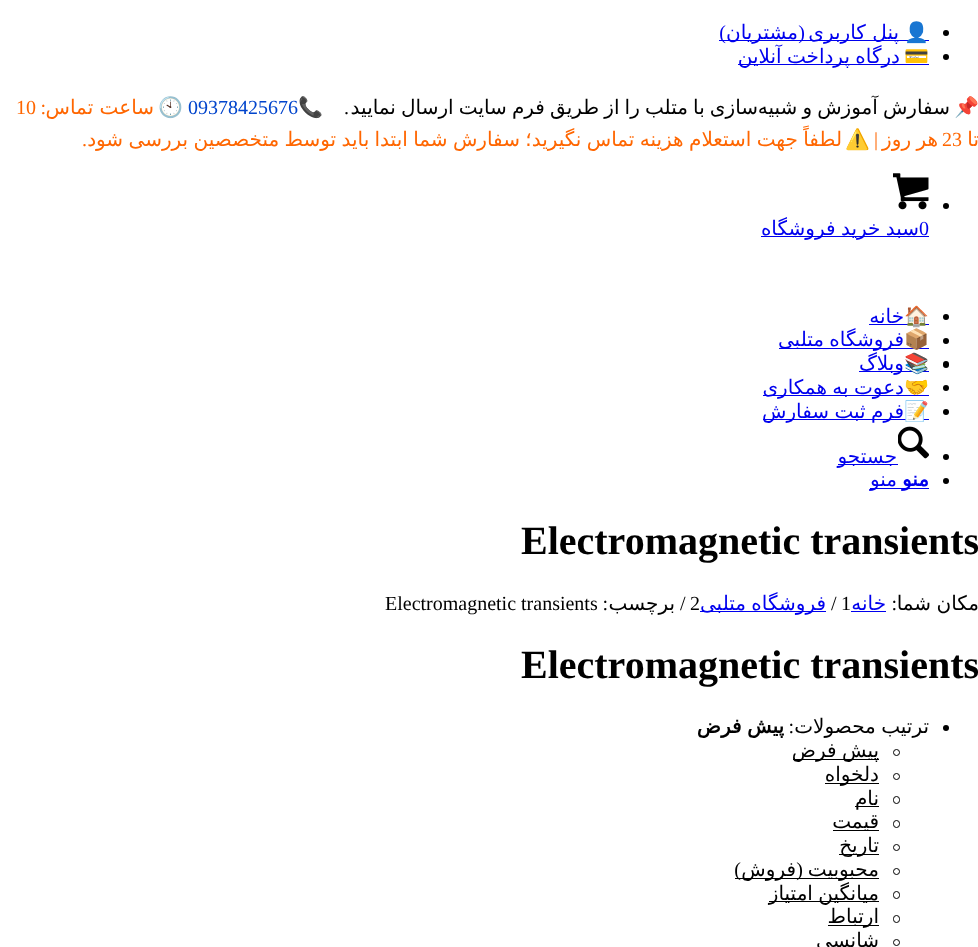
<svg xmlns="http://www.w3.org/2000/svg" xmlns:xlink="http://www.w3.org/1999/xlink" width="978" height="947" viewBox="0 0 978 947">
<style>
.cls-1{font:20px Noto Color Emoji;direction:rtl;fill:#0000ee}
.cls-2{font:20px DejaVu Sans;direction:rtl;fill:#0000ee}
.cls-3{font:20px Liberation Serif;direction:rtl;fill:#0000ee}
.cls-4{font:20px Noto Color Emoji;direction:rtl;fill:#000000}
.cls-5{font:20px DejaVu Sans;direction:rtl;fill:#000000}
.cls-6{font:20px Liberation Serif;direction:rtl;fill:#000000}
.cls-7{font:20px Noto Color Emoji;fill:#0044cc}
.cls-8{font:20px Liberation Serif;fill:#0044cc}
.cls-9{font:20px Noto Color Emoji;direction:rtl;fill:#ff6600}
.cls-10{font:20px DejaVu Sans;direction:rtl;fill:#ff6600}
.cls-11{font:20px Liberation Serif;direction:rtl;fill:#ff6600}
.cls-12{font:20px Liberation Serif;fill:#ff6600}
.cls-13{font:20px Liberation Serif;fill:#0000ee}
.cls-14{font:bold 20px DejaVu Sans;direction:rtl;fill:#0000ee}
.cls-15{font:bold 40px Liberation Serif;fill:#000000}
.cls-16{font:20px Liberation Serif;fill:#000000}
.cls-17{font:bold 20px DejaVu Sans;direction:rtl;fill:#000000}
</style>
<rect width="100%" height="100%" fill="#ffffff"/>
<circle fill="#000000" cx="946" cy="33" r="3"/>
<rect fill="#0000ee" x="719" y="40" width="210" height="1"/>
<circle fill="#000000" cx="946" cy="57" r="3"/>
<rect fill="#0000ee" x="738" y="64" width="191" height="1"/>
<circle fill="#000000" cx="946" cy="206" r="3"/>
<image xlink:href="image0.png" x="893" y="173" width="36" height="37"/>
<rect fill="#0000ee" x="761" y="236" width="168" height="1"/>
<circle fill="#000000" cx="946" cy="317" r="3"/>
<rect fill="#0000ee" x="869" y="324" width="60" height="1"/>
<circle fill="#000000" cx="946" cy="341" r="3"/>
<rect fill="#0000ee" x="779" y="348" width="150" height="1"/>
<rect fill="#000000" x="943" y="361" width="6" height="7" rx="3"/>
<rect fill="#0000ee" x="859" y="371" width="70" height="1"/>
<circle fill="#000000" cx="946" cy="388" r="3"/>
<rect fill="#0000ee" x="763" y="395" width="166" height="1"/>
<circle fill="#000000" cx="946" cy="412" r="3"/>
<rect fill="#0000ee" x="763" y="419" width="166" height="1"/>
<image xlink:href="image1.png" x="898" y="426" width="31" height="33"/>
<circle fill="#000000" cx="946" cy="457" r="3"/>
<rect fill="#0000ee" x="838" y="464" width="60" height="1"/>
<circle fill="#000000" cx="946" cy="481" r="3"/>
<rect fill="#0000ee" x="901" y="488" width="28" height="1"/>
<rect fill="#0000ee" x="870" y="488" width="31" height="1"/>
<rect fill="#0000ee" x="851" y="611" width="35" height="1"/>
<rect fill="#0000ee" x="700" y="611" width="126" height="1"/>
<circle fill="#000000" cx="946" cy="728" r="3"/>
<circle fill="none" stroke="#000000" cx="896.5" cy="752.5" r="3"/>
<rect fill="#000000" x="793" y="759" width="86" height="1"/>
<circle fill="none" stroke="#000000" cx="896.5" cy="776.5" r="3"/>
<rect fill="#000000" x="825" y="783" width="54" height="1"/>
<rect fill="none" stroke="#000000" x="893.5" y="796.5" width="6" height="7" rx="3"/>
<rect fill="#000000" x="855" y="806" width="24" height="1"/>
<rect fill="none" stroke="#000000" x="893.5" y="820.5" width="6" height="7" rx="3"/>
<rect fill="#000000" x="833" y="830" width="46" height="1"/>
<circle fill="none" stroke="#000000" cx="896.5" cy="847.5" r="3"/>
<rect fill="#000000" x="839" y="854" width="40" height="1"/>
<circle fill="none" stroke="#000000" cx="896.5" cy="871.5" r="3"/>
<rect fill="#000000" x="735" y="878" width="144" height="1"/>
<rect fill="none" stroke="#000000" x="893.5" y="891.5" width="6" height="7" rx="3"/>
<rect fill="#000000" x="769" y="901" width="110" height="1"/>
<rect fill="none" stroke="#000000" x="893.5" y="915.5" width="6" height="7" rx="3"/>
<rect fill="#000000" x="828" y="925" width="51" height="1"/>
<circle fill="none" stroke="#000000" cx="896.5" cy="942.5" r="3"/>
<text class="cls-1" x="929" y="39">👤</text>
<text class="cls-2" x="899" y="39">پنل کاربری</text>
<text class="cls-3" x="805" y="39">(</text>
<text class="cls-2" x="798" y="39">مشتریان</text>
<text class="cls-3" x="726" y="39">)</text>
<text class="cls-1" x="929" y="63">💳</text>
<text class="cls-2" x="900" y="63" word-spacing="-1">درگاه پرداخت آنلاین</text>
<text class="cls-4" x="979" y="114">📌</text>
<text class="cls-5" x="758" y="114" word-spacing="-1.25">سازی با متلب را از طریق فرم سایت ارسال نمایید</text>
<text class="cls-5" x="950" y="114" word-spacing="-1.25">سفارش آموزش و شبیه</text>
<text class="cls-6" x="349" y="114">.</text>
<text class="cls-7" x="298" y="114">📞</text>
<text class="cls-8" x="188" y="114">09378425676</text>
<text class="cls-9" x="183" y="114">🕙</text>
<text class="cls-10" x="154" y="114">ساعت تماس</text>
<text class="cls-11" x="46" y="114">:</text>
<text class="cls-12" x="16" y="114">10</text>
<text class="cls-10" x="979" y="146">تا</text>
<text class="cls-12" x="942" y="146">23</text>
<text class="cls-10" x="938" y="146" word-spacing="-1">هر روز</text>
<text class="cls-11" x="878" y="146">|</text>
<text class="cls-10" x="842" y="146" word-spacing="-1">لطفاً جهت استعلام هزینه تماس نگیرید؛ سفارش شما ابتدا باید توسط متخصصین بررسی شود</text>
<text class="cls-9" x="870" y="146">⚠️</text>
<text class="cls-11" x="87" y="146">.</text>
<text class="cls-13" x="919" y="235">0</text>
<text class="cls-2" x="919" y="235" word-spacing="-1">سبد خرید فروشگاه</text>
<text class="cls-1" x="929" y="323">🏠</text>
<text class="cls-2"><tspan x="904" y="323">خانه</tspan><tspan x="904" y="346" word-spacing="-1">فروشگاه متلبی</tspan></text>
<text class="cls-1"><tspan x="929" y="346">📦</tspan><tspan x="929" y="370">📚</tspan></text>
<text class="cls-2"><tspan x="904" y="370">وبلاگ</tspan><tspan x="904" y="394" word-spacing="-1">دعوت به همکاری</tspan></text>
<text class="cls-1" x="929" y="394">🤝</text>
<text class="cls-2" x="904" y="418" word-spacing="-1">فرم ثبت سفارش</text>
<text class="cls-1" x="929" y="418">📝</text>
<text class="cls-2" x="897" y="463">جستجو</text>
<text class="cls-14" x="929" y="486">منو</text>
<text class="cls-2" x="897" y="486">منو</text>
<text class="cls-15" x="521" y="554">Electromagnetic transients</text>
<text class="cls-5" x="979" y="610" word-spacing="-1">مکان شما</text>
<text class="cls-6" x="897" y="610">:</text>
<text class="cls-2" x="886" y="610">خانه</text>
<text class="cls-16" x="841" y="610">1</text>
<text class="cls-16" x="831" y="610">/</text>
<text class="cls-2" x="826" y="610" word-spacing="-1">فروشگاه متلبی</text>
<text class="cls-16" x="690" y="610">2</text>
<text class="cls-16" x="680" y="610">/</text>
<text class="cls-5" x="675" y="610">برچسب</text>
<text class="cls-6" x="608" y="610">:</text>
<text class="cls-16" x="385" y="610">Electromagnetic transients</text>
<text class="cls-15" x="521" y="678">Electromagnetic transients</text>
<text class="cls-5" x="929" y="733" word-spacing="-1">ترتیب محصولات</text>
<text class="cls-6" x="794" y="733">:</text>
<text class="cls-17" x="784" y="733" word-spacing="-1">پیش فرض</text>
<text class="cls-5"><tspan x="879" y="757" word-spacing="-1">پیش فرض</tspan><tspan x="879" y="781">دلخواه</tspan><tspan x="879" y="805">نام</tspan><tspan x="879" y="828">قیمت</tspan><tspan x="879" y="852">تاریخ</tspan><tspan x="879" y="876">محبوبیت</tspan></text>
<text class="cls-6" x="803" y="876">(</text>
<text class="cls-5" x="796" y="876">فروش</text>
<text class="cls-6" x="741" y="876">)</text>
<text class="cls-5"><tspan x="879" y="900" word-spacing="-1">میانگین امتیاز</tspan><tspan x="879" y="923">ارتباط</tspan><tspan x="879" y="947">شانسی</tspan></text>
</svg>
